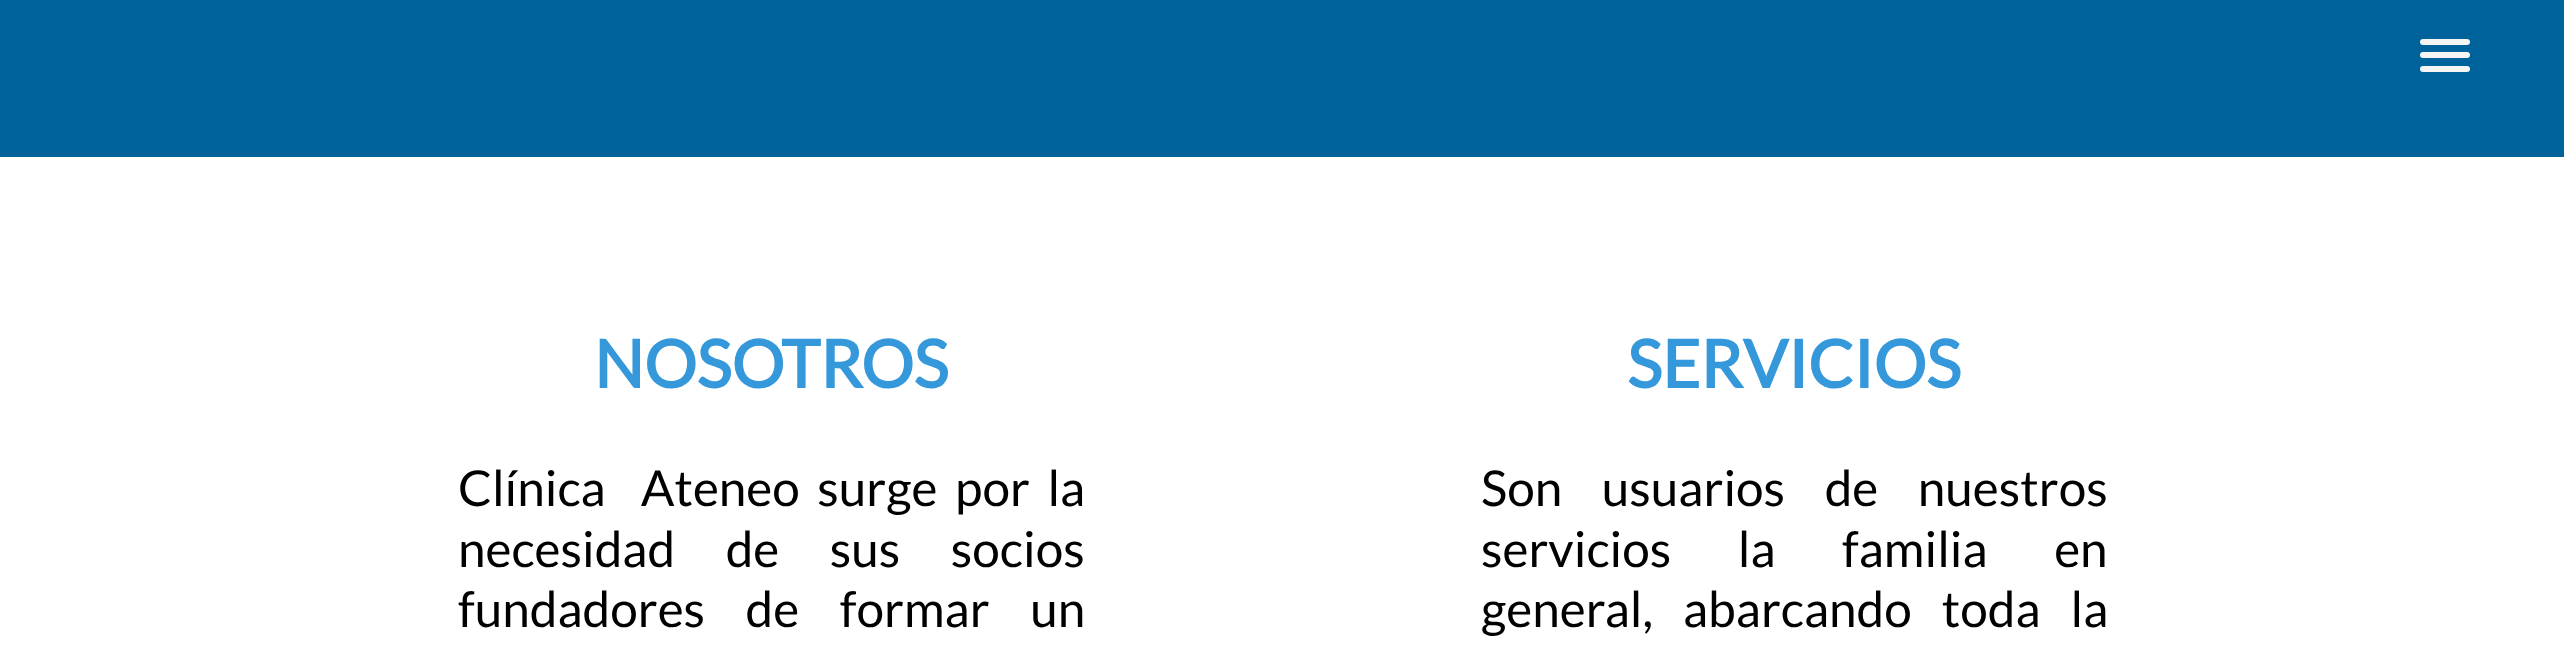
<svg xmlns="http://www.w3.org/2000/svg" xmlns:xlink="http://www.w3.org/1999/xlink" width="2564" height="666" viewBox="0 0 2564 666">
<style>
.cls-1{font:bold 66px Lato;fill:#3498db}
.cls-2{font:49.5px Lato;fill:#000000}
</style>
<rect width="100%" height="100%" fill="#00629b"/>
<rect fill="#f5f5f5" x="2420" y="39" width="50" height="6" rx="3"/>
<rect fill="#f5f5f5" x="2420" y="52" width="50" height="6" rx="3"/>
<rect fill="#f5f5f5" x="2420" y="66" width="50" height="6" rx="3"/>
<rect fill="#ffffff" x="0" y="157" width="2564" height="509"/>
<text class="cls-1" x="594" y="388">NOSOTROS</text>
<text class="cls-2" xml:space="preserve"><tspan x="458" y="506" word-spacing="8">Clínica  Ateneo surge por la</tspan><tspan x="458" y="567" word-spacing="41">necesidad de sus socios</tspan><tspan x="458" y="627" word-spacing="31">fundadores de formar un</tspan></text>
<text class="cls-1" x="1627" y="388">SERVICIOS</text>
<text class="cls-2"><tspan x="1481" y="506" word-spacing="30">Son usuarios de nuestros</tspan><tspan x="1481" y="567" word-spacing="57">servicios la familia en</tspan><tspan x="1481" y="627" word-spacing="20.5">general, abarcando toda la</tspan></text>
</svg>
